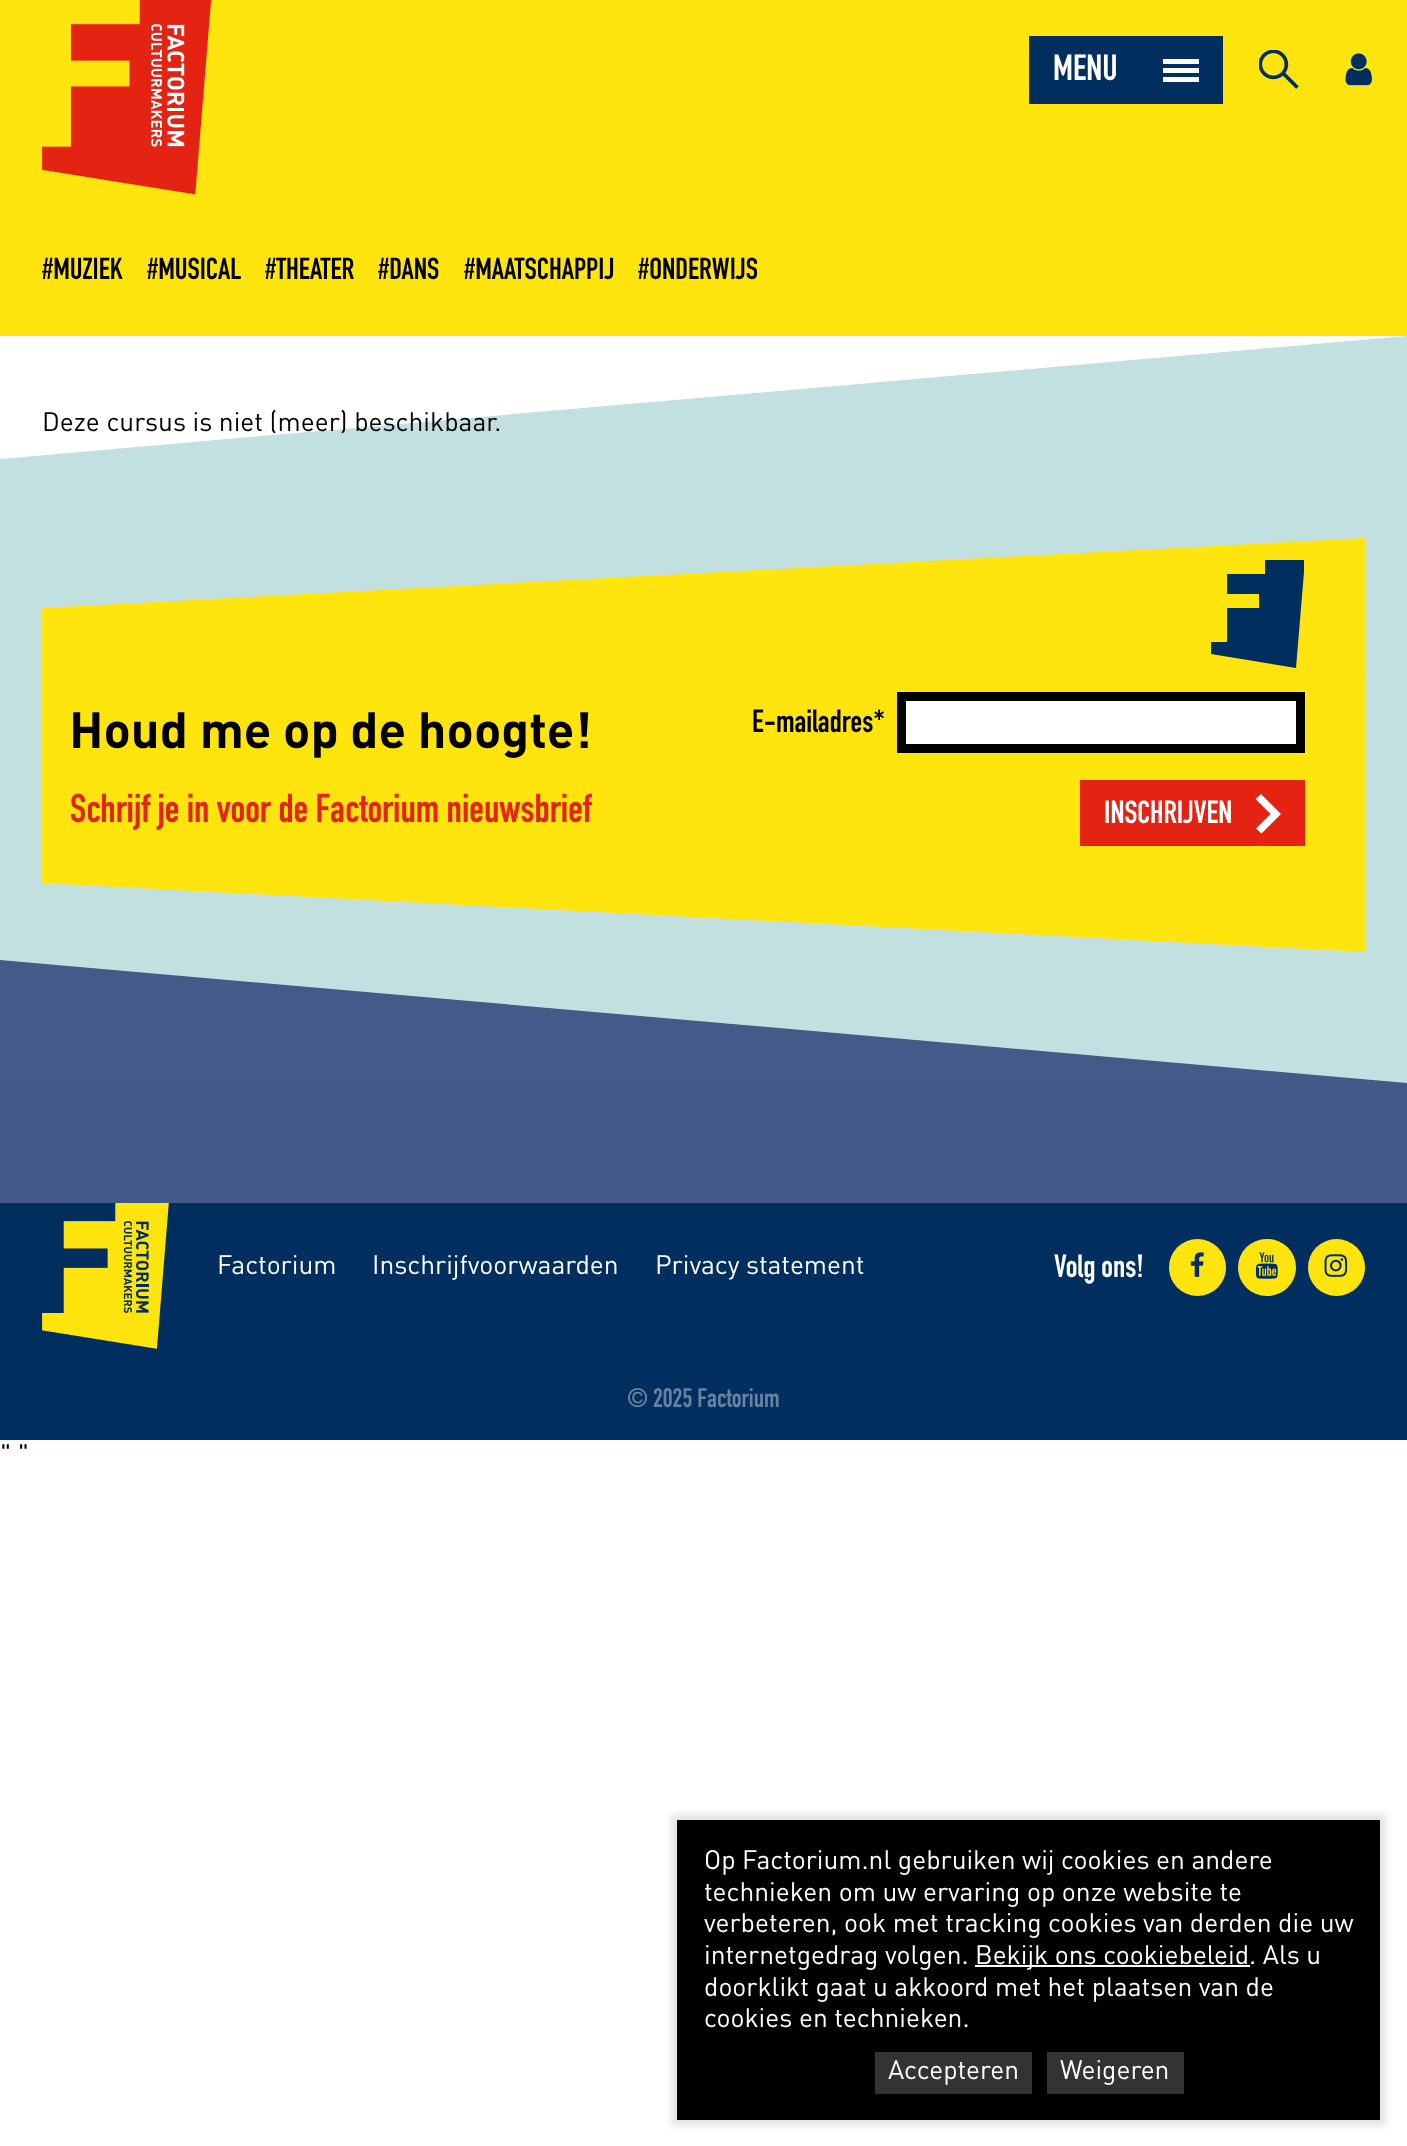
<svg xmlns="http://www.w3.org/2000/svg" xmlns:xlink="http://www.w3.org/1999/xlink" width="1407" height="2146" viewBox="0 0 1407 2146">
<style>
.cls-1{font:36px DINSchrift;fill:#ffffff}
.cls-2{font:30px DINSchrift;fill:#000000}
.cls-3{font:26.4px DIN;fill:#000000}
.cls-4{font:bold 50.4px DIN;fill:#000000}
.cls-5{font:39.6px DINSchrift;fill:#e42313}
.cls-6{font:31.5px DINSchrift;fill:#000000}
.cls-7{font:31.5px DINSchrift;fill:#ffffff}
.cls-8{font:26.4px DIN;fill:#ffffff}
.cls-9{font:26.4px DINSchrift;fill:#66829f}
</style>
<defs>
<clipPath id="clip1"><rect x="0" y="336" width="1407" height="747"/></clipPath>
<clipPath id="clip2"><rect x="1211" y="560" width="93" height="108"/></clipPath>
<clipPath id="clip3"><rect x="0" y="1083" width="1407" height="120"/></clipPath>
</defs>
<rect width="100%" height="100%" fill="#ffffff"/>
<rect fill="#ffe40d" x="0" y="0" width="1407" height="336"/>
<image xlink:href="image0.png" x="42" y="0" width="170" height="195"/>
<rect fill="#002e5f" x="1029" y="36" width="194" height="68"/>
<rect fill="#ffffff" x="1163" y="68" width="36" height="5"/>
<rect fill="#ffffff" x="1163" y="59" width="36" height="5"/>
<rect fill="#ffffff" x="1163" y="77" width="36" height="5"/>
<image xlink:href="image1.png" x="1259" y="50" width="40" height="39"/>
<image xlink:href="image2.png" x="1345" y="53" width="27" height="33"/>
<g clip-path="url(#clip1)">
<path fill="#c3e0e1" d="M0 459L1407 336V1083L0 1206Z"/>
</g>
<path fill="#ffe40d" d="M42 608L1365 538V813L42 883Z"/>
<path fill="#ffe40d" d="M42 608L1365 677V952L42 883Z"/>
<g clip-path="url(#clip2)">
<path fill="#002e5f" d="M1265 560V574H1227V594H1259V608H1227V642H1211V654L1296 668L1305 560Z"/>
</g>
<rect fill="#ffffff" stroke="#000000" stroke-width="9" x="901.5" y="696.5" width="399" height="52"/>
<rect fill="#e42313" x="1080" y="780" width="225" height="66"/>
<path fill="#ffffff" d="M1261.5 833.5L1256 828.5L1270.5 814L1255.5 799L1261 794L1281 814Z"/>
<g clip-path="url(#clip1)">
<path fill="#425b89" d="M0 960L1407 1083V1830L0 1707Z"/>
</g>
<rect fill="#002e5f" x="0" y="1203" width="1407" height="237"/>
<g clip-path="url(#clip3)">
<path fill="#415a87" d="M0 960L1407 1083V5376L0 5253Z"/>
</g>
<image xlink:href="image3.png" x="42" y="1203" width="127" height="146"/>
<circle fill="#ffe40d" cx="1197.5" cy="1267.5" r="28.5"/>
<image xlink:href="image4.png" x="1190" y="1252" width="14" height="25"/>
<rect fill="#ffe40d" x="1238" y="1239" width="58" height="57" rx="28.5"/>
<image xlink:href="image5.png" x="1255" y="1252" width="23" height="27"/>
<circle fill="#ffe40d" cx="1336.5" cy="1267.5" r="28.5"/>
<image xlink:href="image6.png" x="1324" y="1254" width="24" height="23"/>
<rect fill="#000000" fill-opacity="0.1" filter="blur(3px)" x="671" y="1814" width="715" height="312"/>
<rect fill="#000000" x="677" y="1820" width="703" height="300"/>
<rect fill="#ffffff" x="975" y="1965" width="275" height="2"/>
<rect fill="#333333" x="875" y="2052" width="157" height="42"/>
<rect fill="#333333" x="1047" y="2052" width="137" height="42"/>
<text class="cls-1" x="1053" y="80">MENU</text>
<text class="cls-2" x="42" y="279">#MUZIEK</text>
<text class="cls-2" x="147" y="279">#MUSICAL</text>
<text class="cls-2" x="265" y="279">#THEATER</text>
<text class="cls-2" x="378" y="279">#DANS</text>
<text class="cls-2" x="464" y="279">#MAATSCHAPPIJ</text>
<text class="cls-2" x="638" y="279">#ONDERWIJS</text>
<text class="cls-3" x="42" y="431">Deze cursus is niet (meer) beschikbaar.</text>
<text class="cls-4" x="69" y="748">Houd me op de hoogte!</text>
<text class="cls-5" x="70" y="822">Schrijf je in voor de Factorium nieuwsbrief</text>
<text class="cls-6" x="752" y="732">E-mailadres*</text>
<text class="cls-7" x="1104" y="823">INSCHRIJVEN</text>
<text class="cls-8" x="217" y="1274">Factorium</text>
<text class="cls-8" x="372" y="1274">Inschrijfvoorwaarden</text>
<text class="cls-8" x="655" y="1274">Privacy statement</text>
<text class="cls-7" x="1054" y="1277">Volg ons!</text>
<text class="cls-9" x="627" y="1407">© 2025 Factorium</text>
<text class="cls-3" x="0" y="1463">" "</text>
<text class="cls-8"><tspan x="704" y="1869">Op Factorium.nl gebruiken wij cookies en andere</tspan><tspan x="704" y="1901">technieken om uw ervaring op onze website te</tspan><tspan x="704" y="1932">verbeteren, ook met tracking cookies van derden die uw</tspan><tspan x="704" y="1964">internetgedrag volgen.</tspan></text>
<text class="cls-8" x="975" y="1964">Bekijk ons cookiebeleid. Als u</text>
<text class="cls-8"><tspan x="704" y="1996">doorklikt gaat u akkoord met het plaatsen van de</tspan><tspan x="704" y="2027">cookies en technieken.</tspan></text>
<text class="cls-8" x="888" y="2079">Accepteren</text>
<text class="cls-8" x="1060" y="2079">Weigeren</text>
</svg>
